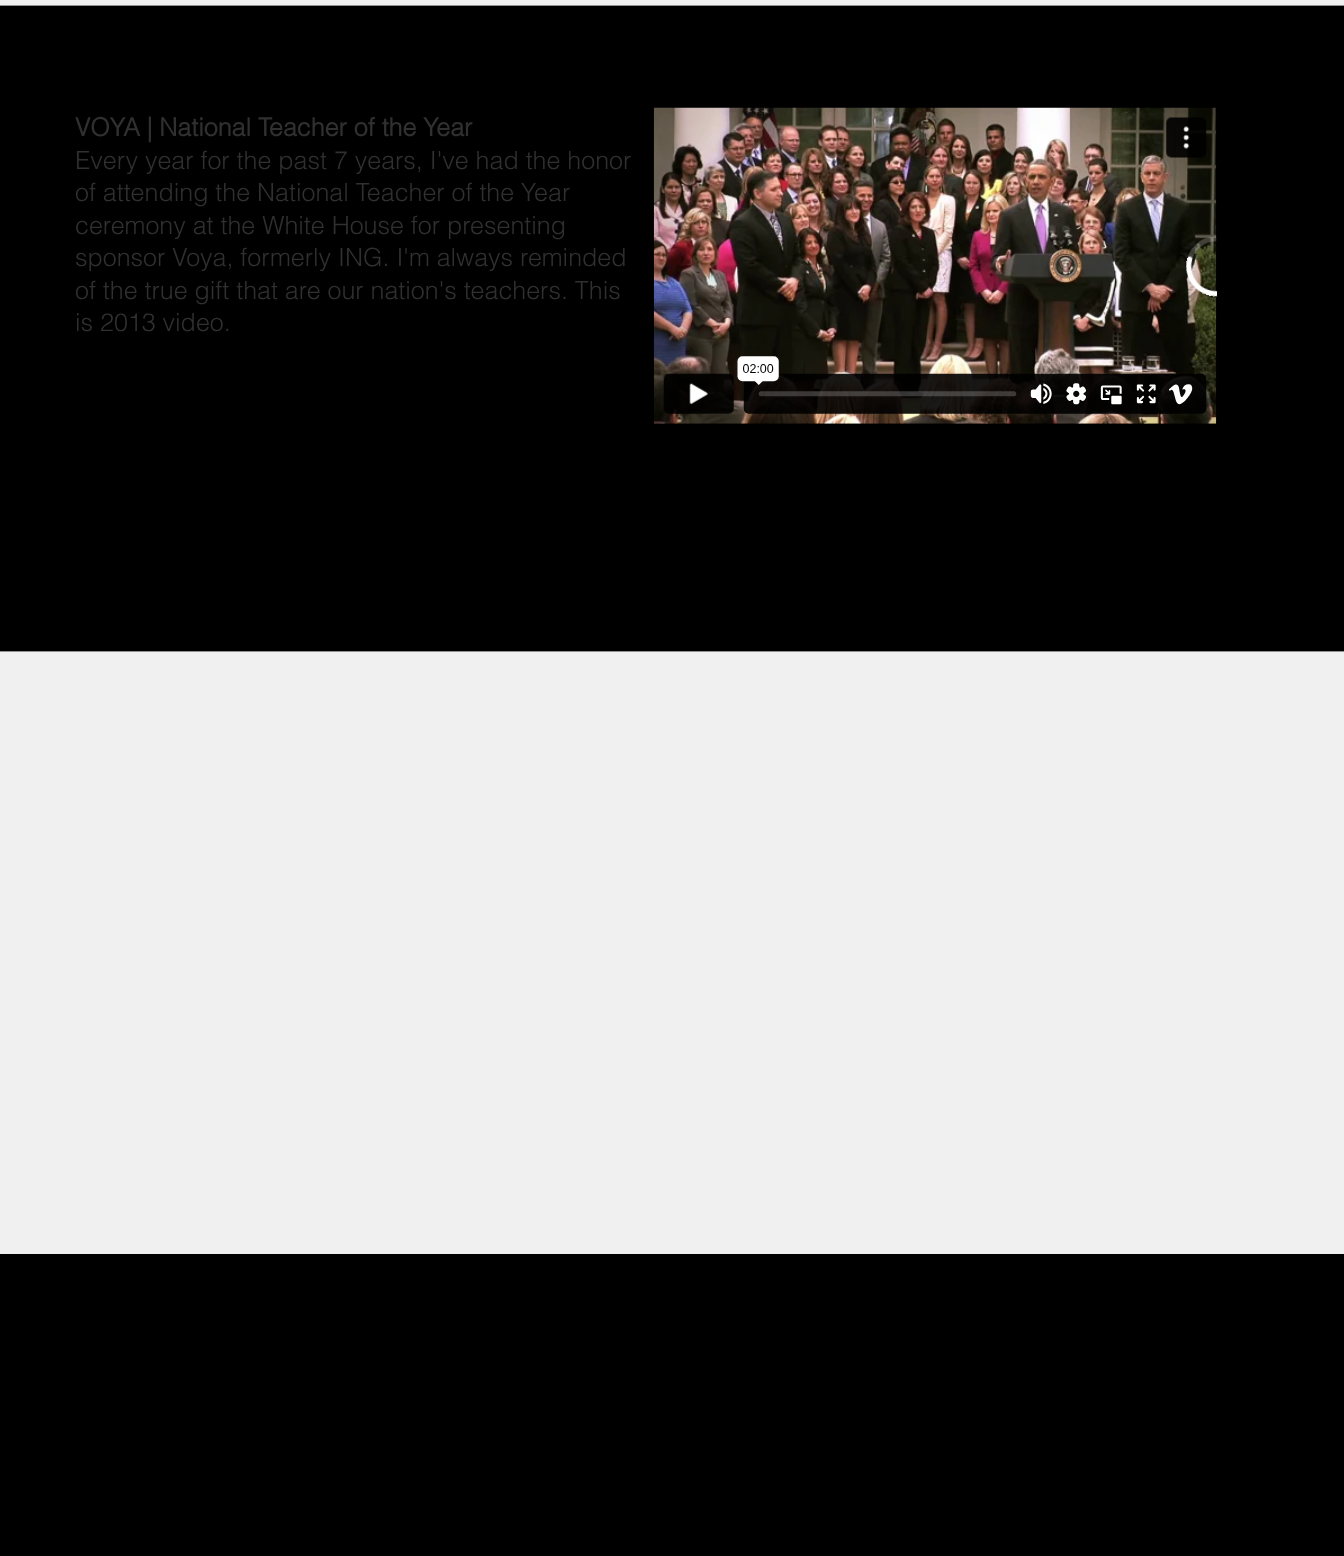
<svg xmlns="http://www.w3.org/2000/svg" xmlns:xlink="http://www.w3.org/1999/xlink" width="1344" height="1556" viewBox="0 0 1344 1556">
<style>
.cls-1{font:bold 25px helvetica;fill:#303030}
.cls-2{font:300 25px helvetica;fill:#303030}
</style>
<rect width="100%" height="100%" fill="#000000"/>
<rect fill="#f0f0f0" x="0" y="0" width="1344" height="5"/>
<rect fill="#909090" x="0" y="5" width="1344" height="1"/>
<image xlink:href="image0.png" x="653" y="107" width="564" height="317"/>
<rect fill="#f0f0f0" x="0" y="652" width="1344" height="602"/>
<rect fill="#909090" x="0" y="651" width="1344" height="1"/>
<text class="cls-1" x="75" y="136">VOYA | National Teacher of the Year</text>
<text class="cls-2"><tspan x="75" y="169">Every year for the past 7 years, I've had the honor</tspan><tspan x="75" y="201">of attending the National Teacher of the Year</tspan><tspan x="75" y="234">ceremony at the White House for presenting</tspan><tspan x="75" y="266">sponsor Voya, formerly ING. I'm always reminded</tspan><tspan x="75" y="299">of the true gift that are our nation's teachers. This</tspan><tspan x="75" y="331">is 2013 video.</tspan></text>
</svg>
